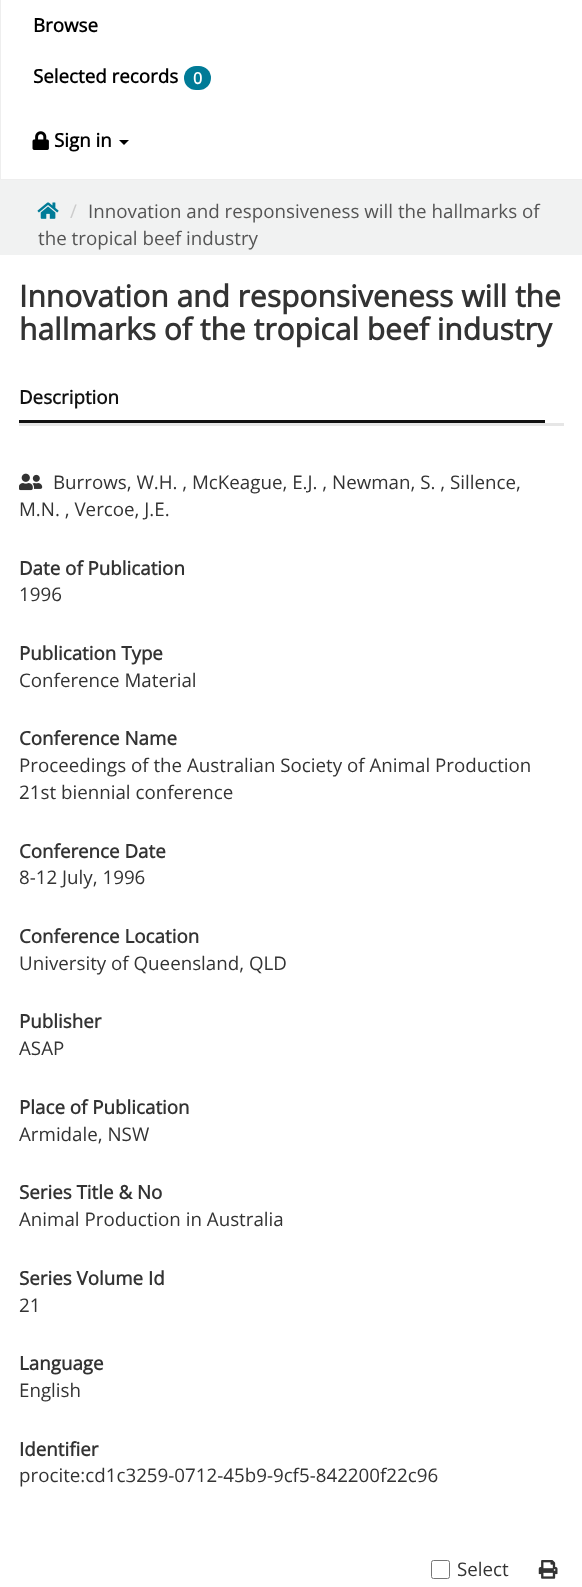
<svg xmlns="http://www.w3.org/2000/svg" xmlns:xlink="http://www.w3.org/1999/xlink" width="582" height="1587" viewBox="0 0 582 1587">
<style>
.cls-1{font:bold 18.75px Open Sans;fill:#000000}
.cls-2{font:bold 16px Open Sans;fill:#ffffff}
.cls-3{font:18.75px Open Sans;fill:#cccccc}
.cls-4{font:18.75px Open Sans;fill:#555555}
.cls-5{font:bold 30px Open Sans;fill:#333333}
.cls-6{font:bold 18.75px Open Sans;fill:#111111}
.cls-7{font:18.75px Open Sans;fill:#333333}
.cls-8{font:bold 18.75px Open Sans;fill:#333333}
</style>
<rect width="100%" height="100%" fill="#ffffff"/>
<rect fill="none" stroke="#eeeeee" x="0.5" y="-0.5" width="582" height="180"/>
<rect fill="#007b97" x="184" y="66" width="27" height="24" rx="12"/>
<image xlink:href="image0.png" x="32" y="131" width="17" height="19"/>
<path fill="#000000" d="M119 140H129L124 145Z"/>
<rect fill="#f1f2f2" x="0" y="180" width="582" height="75"/>
<image xlink:href="image1.png" x="37" y="202" width="22" height="17"/>
<rect fill="#111111" x="19" y="420" width="526" height="3"/>
<rect fill="#e6e6e6" x="19" y="423" width="545" height="3"/>
<image xlink:href="image2.png" x="19" y="473" width="24" height="18"/>
<rect fill="none" stroke="#767676" x="431.5" y="1560.5" width="18" height="18" rx="2"/>
<image xlink:href="image3.png" x="538" y="1560" width="20" height="19"/>
<text class="cls-1" x="33" y="32">Browse</text>
<text class="cls-1" x="33" y="83">Selected records</text>
<text class="cls-2" x="193" y="84">0</text>
<text class="cls-1" x="54" y="147">Sign in</text>
<text class="cls-3" x="70" y="218">/</text>
<text class="cls-4" x="88" y="218">Innovation and responsiveness will the hallmarks of</text>
<text class="cls-4" x="38" y="245">the tropical beef industry</text>
<text class="cls-5"><tspan x="19" y="307">Innovation and responsiveness will the</tspan><tspan x="19" y="340">hallmarks of the tropical beef industry</tspan></text>
<text class="cls-6" x="19" y="404">Description</text>
<text class="cls-7" x="53" y="489">Burrows, W.H. , McKeague, E.J. , Newman, S. , Sillence,</text>
<text class="cls-7" x="19" y="516">M.N. , Vercoe, J.E.</text>
<text class="cls-8" x="19" y="575">Date of Publication</text>
<text class="cls-7" x="19" y="601">1996</text>
<text class="cls-8" x="19" y="660">Publication Type</text>
<text class="cls-7" x="19" y="687">Conference Material</text>
<text class="cls-8" x="19" y="745">Conference Name</text>
<text class="cls-7"><tspan x="19" y="772">Proceedings of the Australian Society of Animal Production</tspan><tspan x="19" y="799">21st biennial conference</tspan></text>
<text class="cls-8" x="19" y="858">Conference Date</text>
<text class="cls-7" x="19" y="884">8-12 July, 1996</text>
<text class="cls-8" x="19" y="943">Conference Location</text>
<text class="cls-7" x="19" y="970">University of Queensland, QLD</text>
<text class="cls-8" x="19" y="1028">Publisher</text>
<text class="cls-7" x="19" y="1055">ASAP</text>
<text class="cls-8" x="19" y="1114">Place of Publication</text>
<text class="cls-7" x="19" y="1141">Armidale, NSW</text>
<text class="cls-8" x="19" y="1199">Series Title &amp; No</text>
<text class="cls-7" x="19" y="1226">Animal Production in Australia</text>
<text class="cls-8" x="19" y="1285">Series Volume Id</text>
<text class="cls-7" x="19" y="1312">21</text>
<text class="cls-8" x="19" y="1370">Language</text>
<text class="cls-7" x="19" y="1397">English</text>
<text class="cls-8" x="19" y="1456">Identifier</text>
<text class="cls-7" x="19" y="1482">procite:cd1c3259-0712-45b9-9cf5-842200f22c96</text>
<text class="cls-7" x="457" y="1576">Select</text>
</svg>
